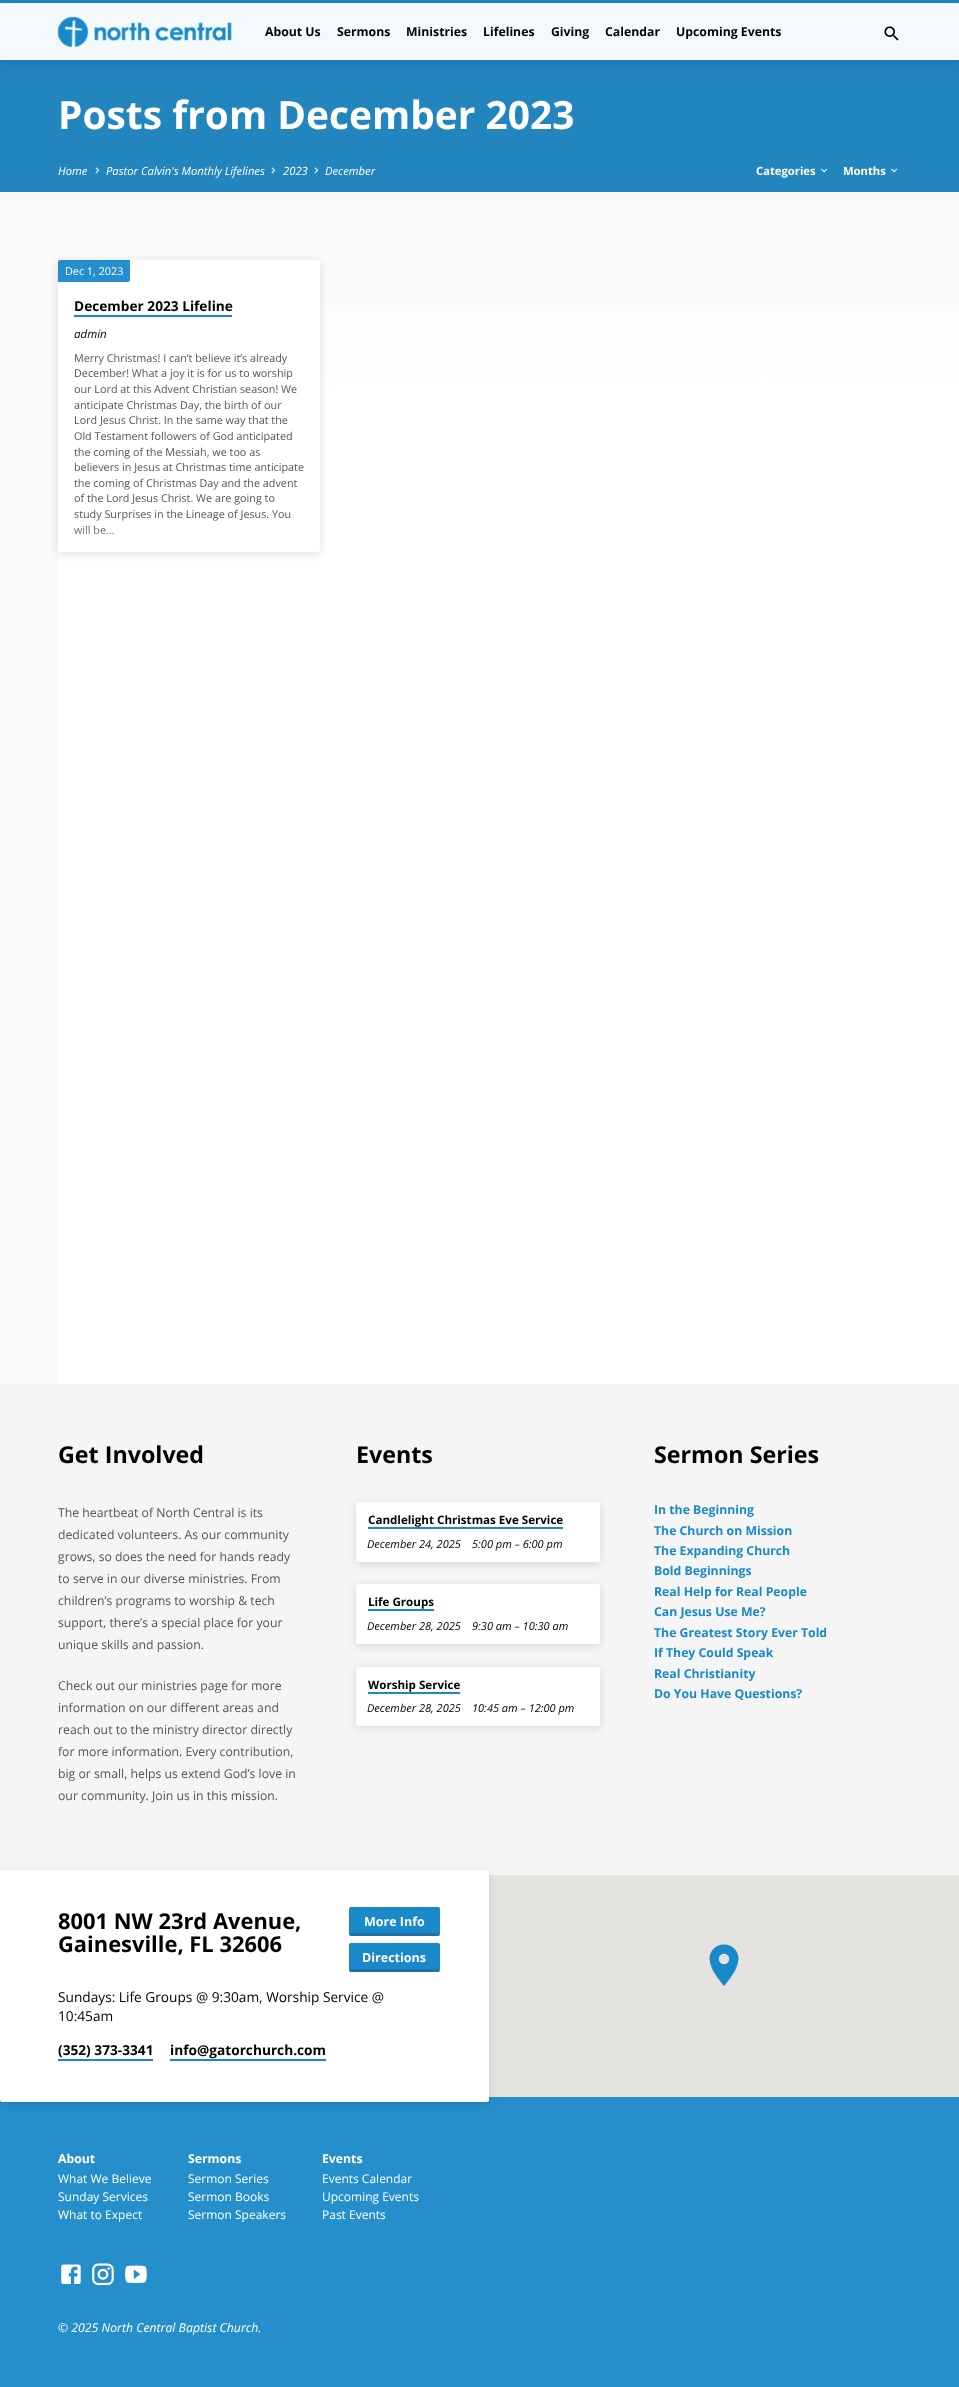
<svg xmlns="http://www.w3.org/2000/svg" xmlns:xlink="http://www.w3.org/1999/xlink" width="959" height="2387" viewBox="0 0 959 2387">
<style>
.cls-1{font:bold 12.25px Open Sans;fill:#000000}
.cls-2{font:bold 38.9px Open Sans;fill:#ffffff}
.cls-3{font:italic 11.25px Open Sans;fill:#ffffff}
.cls-4{font:bold 11.25px Open Sans;fill:#ffffff}
.cls-5{font:10.8px Open Sans;fill:#ffffff}
.cls-6{font:bold 13.7px Open Sans;fill:#000000}
.cls-7{font:italic 11.5px Open Sans;fill:#000000}
.cls-8{font:10.8px Open Sans;fill:#555555}
.cls-9{font:bold 23.25px Open Sans;fill:#000000}
.cls-10{font:12.25px Open Sans;fill:#555555}
.cls-11{font:bold 11.6px Open Sans;fill:#000000}
.cls-12{font:italic 11px Open Sans;fill:#000000}
.cls-13{font:bold 12.25px Open Sans;fill:#1989c9}
.cls-14{font:bold 21.9px Open Sans;fill:#000000}
.cls-15{font:bold 12.5px Open Sans;fill:#ffffff}
.cls-16{font:13.7px Open Sans;fill:#000000}
.cls-17{font:bold 12.25px Open Sans;fill:#ffffff}
.cls-18{font:12px Open Sans;fill:#ffffff}
.cls-19{font:italic 12.25px Open Sans;fill:#ffffff}
</style>
<defs>
<clipPath id="clip1"><path d="M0 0H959V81H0ZM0 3H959V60H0Z" clip-rule="evenodd"/></clipPath>
<linearGradient id="g1" gradientUnits="userSpaceOnUse" x1="537" y1="192" x2="538" y2="1384"><stop offset="0.08" stop-color="#fcfcfc"/><stop offset="0.17" stop-color="#ffffff"/></linearGradient>
<linearGradient id="g2" gradientUnits="userSpaceOnUse" x1="189" y1="527" x2="189" y2="552"><stop offset="0" stop-color="#ffffff" stop-opacity="0"/><stop offset="1" stop-color="#ffffff" stop-opacity="0.9"/></linearGradient>
</defs>
<rect width="100%" height="100%" fill="#fafafa"/>
<rect fill="#1989c8" x="0" y="0" width="959" height="3"/>
<rect fill="#f4f9fc" x="0" y="3" width="959" height="57"/>
<rect fill="#2285be" x="0" y="60" width="959" height="132"/>
<g clip-path="url(#clip1)">
<rect fill="#000000" fill-opacity="0.14" filter="blur(6px)" x="0" y="5" width="959" height="57"/>
</g>
<image xlink:href="image0.png" x="57" y="16" width="175" height="31"/>
<image xlink:href="image1.png" x="884" y="26" width="15" height="15"/>
<image xlink:href="image2.png" x="95" y="167" width="5" height="7"/>
<image xlink:href="image2.png" x="271" y="167" width="5" height="7"/>
<image xlink:href="image2.png" x="314" y="167" width="5" height="7"/>
<image xlink:href="image3.png" x="821" y="168" width="7" height="5"/>
<image xlink:href="image3.png" x="891" y="168" width="7" height="5"/>
<rect fill="url(#g1)" x="58" y="305" width="901" height="1079"/>
<rect fill="#000000" fill-opacity="0.12" filter="blur(5px)" x="58" y="262" width="262" height="292" rx="2"/>
<rect fill="#ffffff" x="58" y="260" width="262" height="292" rx="2"/>
<path fill="#248fcc" d="M60 260H130V280C130 281 129 282 128 282H58V262C58 261 59 260 60 260Z"/>
<rect fill="#1989c9" x="74" y="315" width="158" height="2"/>
<rect fill="#f5f5f5" x="0" y="1384" width="959" height="491"/>
<rect fill="#000000" fill-opacity="0.12" filter="blur(5px)" x="356" y="1504" width="244" height="60" rx="2"/>
<rect fill="#ffffff" x="356" y="1502" width="244" height="60" rx="2"/>
<rect fill="#1989c9" x="368" y="1527" width="195" height="2"/>
<rect fill="#000000" fill-opacity="0.12" filter="blur(5px)" x="356" y="1586" width="244" height="60" rx="2"/>
<rect fill="#ffffff" x="356" y="1584" width="244" height="60" rx="2"/>
<rect fill="#1989c9" x="368" y="1609" width="66" height="2"/>
<rect fill="#000000" fill-opacity="0.12" filter="blur(5px)" x="356" y="1669" width="244" height="59" rx="2"/>
<rect fill="#ffffff" x="356" y="1667" width="244" height="59" rx="2"/>
<rect fill="#1989c9" x="368" y="1692" width="92" height="2"/>
<rect fill="#e5e3df" x="489" y="1875" width="470" height="222"/>
<rect fill="#258fcc" x="0" y="2097" width="959" height="290"/>
<rect fill="#000000" fill-opacity="0.12" filter="blur(5px)" x="0" y="1872" width="489" height="232" rx="2"/>
<rect fill="#ffffff" x="0" y="1870" width="489" height="232" rx="2"/>
<image xlink:href="image4.png" x="709" y="1944" width="30" height="42"/>
<rect fill="#1989c9" x="349" y="1907" width="91" height="29" rx="2"/>
<rect fill="#323232" fill-opacity="0.25" x="350" y="1933" width="89" height="3"/>
<rect fill="#1989c9" x="349" y="1943" width="91" height="29" rx="2"/>
<rect fill="#323232" fill-opacity="0.25" x="350" y="1969" width="89" height="3"/>
<rect fill="#1989c9" x="58" y="2059" width="95" height="2"/>
<rect fill="#1989c9" x="170" y="2059" width="156" height="2"/>
<image xlink:href="image5.png" x="61" y="2264" width="20" height="20"/>
<image xlink:href="image6.png" x="92" y="2263" width="22" height="23"/>
<image xlink:href="image7.png" x="125" y="2265" width="22" height="18"/>
<text class="cls-1" x="265" y="36">About Us</text>
<text class="cls-1" x="337" y="36">Sermons</text>
<text class="cls-1" x="406" y="36">Ministries</text>
<text class="cls-1" x="483" y="36">Lifelines</text>
<text class="cls-1" x="551" y="36">Giving</text>
<text class="cls-1" x="605" y="36">Calendar</text>
<text class="cls-1" x="676" y="36">Upcoming Events</text>
<text class="cls-2" x="58" y="129">Posts from December 2023</text>
<text class="cls-3" x="58" y="175">Home</text>
<text class="cls-3" x="106" y="175">Pastor Calvin's Monthly Lifelines</text>
<text class="cls-3" x="283" y="175">2023</text>
<text class="cls-3" x="325" y="175">December</text>
<text class="cls-4" x="756" y="175">Categories</text>
<text class="cls-4" x="843" y="175">Months</text>
<text class="cls-5" x="65" y="275">Dec 1, 2023</text>
<text class="cls-6" x="74" y="311">December 2023 Lifeline</text>
<text class="cls-7" x="74" y="338">admin</text>
<text class="cls-8"><tspan x="74" y="362">Merry Christmas! I can’t believe it’s already</tspan><tspan x="74" y="377">December! What a joy it is for us to worship</tspan><tspan x="74" y="393">our Lord at this Advent Christian season! We</tspan><tspan x="74" y="409">anticipate Christmas Day, the birth of our</tspan><tspan x="74" y="424">Lord Jesus Christ. In the same way that the</tspan><tspan x="74" y="440">Old Testament followers of God anticipated</tspan><tspan x="74" y="456">the coming of the Messiah, we too as</tspan><tspan x="74" y="471">believers in Jesus at Christmas time anticipate</tspan><tspan x="74" y="487">the coming of Christmas Day and the advent</tspan><tspan x="74" y="502">of the Lord Jesus Christ. We are going to</tspan><tspan x="74" y="518">study Surprises in the Lineage of Jesus. You</tspan><tspan x="74" y="534">will be…</tspan></text>
<path fill="url(#g2)" d="M58 527H320V550C320 551 319 552 318 552H60C59 552 58 551 58 550Z"/>
<text class="cls-9" x="58" y="1463">Get Involved</text>
<text class="cls-10"><tspan x="58" y="1517">The heartbeat of North Central is its</tspan><tspan x="58" y="1539">dedicated volunteers. As our community</tspan><tspan x="58" y="1561">grows, so does the need for hands ready</tspan><tspan x="58" y="1583">to serve in our diverse ministries. From</tspan><tspan x="58" y="1605">children’s programs to worship &amp; tech</tspan><tspan x="58" y="1627">support, there’s a special place for your</tspan><tspan x="58" y="1649">unique skills and passion.</tspan></text>
<text class="cls-10"><tspan x="58" y="1690">Check out our ministries page for more</tspan><tspan x="58" y="1712">information on our different areas and</tspan><tspan x="58" y="1734">reach out to the ministry director directly</tspan><tspan x="58" y="1756">for more information. Every contribution,</tspan><tspan x="58" y="1778">big or small, helps us extend God’s love in</tspan><tspan x="58" y="1800">our community. Join us in this mission.</tspan></text>
<text class="cls-9" x="356" y="1463">Events</text>
<text class="cls-11" x="368" y="1524">Candlelight Christmas Eve Service</text>
<text class="cls-12" x="367" y="1548">December 24, 2025</text>
<text class="cls-12" x="472" y="1548">5:00 pm – 6:00 pm</text>
<text class="cls-11" x="368" y="1606">Life Groups</text>
<text class="cls-12" x="367" y="1630">December 28, 2025</text>
<text class="cls-12" x="472" y="1630">9:30 am – 10:30 am</text>
<text class="cls-11" x="368" y="1689">Worship Service</text>
<text class="cls-12" x="367" y="1712">December 28, 2025</text>
<text class="cls-12" x="472" y="1712">10:45 am – 12:00 pm</text>
<text class="cls-9" x="654" y="1463">Sermon Series</text>
<text class="cls-13"><tspan x="654" y="1514">In the Beginning</tspan><tspan x="654" y="1535">The Church on Mission</tspan><tspan x="654" y="1555">The Expanding Church</tspan><tspan x="654" y="1575">Bold Beginnings</tspan><tspan x="654" y="1596">Real Help for Real People</tspan><tspan x="654" y="1616">Can Jesus Use Me?</tspan><tspan x="654" y="1637">The Greatest Story Ever Told</tspan><tspan x="654" y="1657">If They Could Speak</tspan><tspan x="654" y="1678">Real Christianity</tspan><tspan x="654" y="1698">Do You Have Questions?</tspan></text>
<text class="cls-14"><tspan x="58" y="1929">8001 NW 23rd Avenue,</tspan><tspan x="58" y="1952">Gainesville, FL 32606</tspan></text>
<text class="cls-15" x="364" y="1926">More Info</text>
<text class="cls-15" x="362" y="1962">Directions</text>
<text class="cls-16"><tspan x="58" y="2002">Sundays: Life Groups @ 9:30am, Worship Service @</tspan><tspan x="58" y="2021">10:45am</tspan></text>
<text class="cls-6" x="58" y="2055">(352) 373-3341</text>
<text class="cls-6" x="170" y="2055">info@gatorchurch.com</text>
<text class="cls-17" x="58" y="2163">About</text>
<text class="cls-18"><tspan x="58" y="2183">What We Believe</tspan><tspan x="58" y="2201">Sunday Services</tspan><tspan x="58" y="2219">What to Expect</tspan></text>
<text class="cls-17" x="188" y="2163">Sermons</text>
<text class="cls-18"><tspan x="188" y="2183">Sermon Series</tspan><tspan x="188" y="2201">Sermon Books</tspan><tspan x="188" y="2219">Sermon Speakers</tspan></text>
<text class="cls-17" x="322" y="2163">Events</text>
<text class="cls-18"><tspan x="322" y="2183">Events Calendar</tspan><tspan x="322" y="2201">Upcoming Events</tspan><tspan x="322" y="2219">Past Events</tspan></text>
<text class="cls-19" x="58" y="2332">© 2025 North Central Baptist Church.</text>
</svg>
